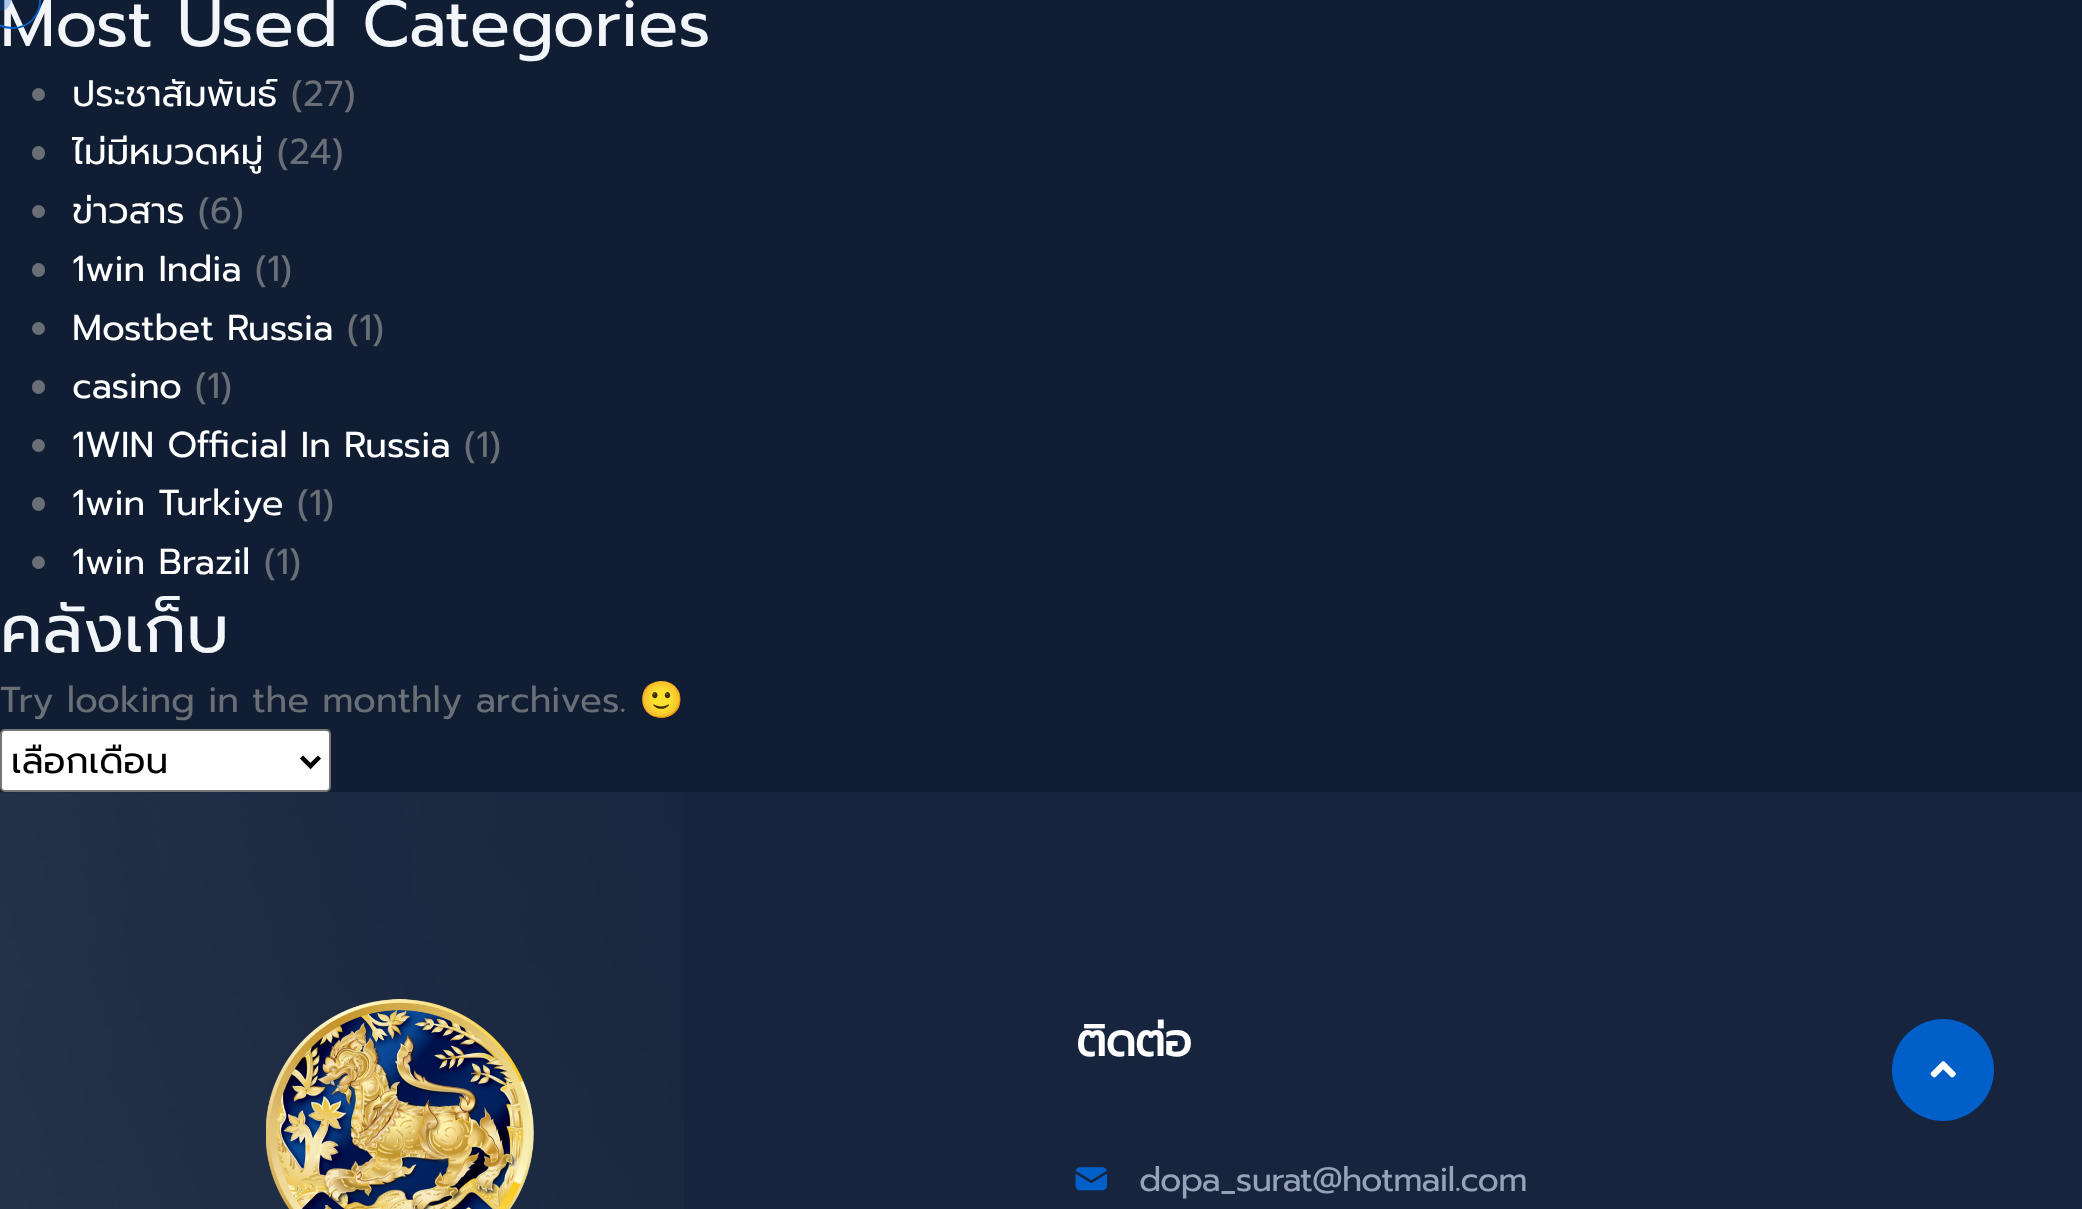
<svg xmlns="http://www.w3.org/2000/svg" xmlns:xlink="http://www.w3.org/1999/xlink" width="2082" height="1209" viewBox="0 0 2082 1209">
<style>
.cls-1{font:66.5px Prompt;fill:#f2f5f9}
.cls-2{font:36px Prompt;fill:#ffffff}
.cls-3{font:36px Prompt;fill:#696e77}
.cls-4{font:36px Noto Color Emoji;fill:#696e77}
.cls-5{font:36px Prompt;fill:#000000}
.cls-6{font:bold 45px Prompt;letter-spacing:-1px;fill:#ffffff}
.cls-7{font:33.75px Prompt;letter-spacing:-0.7px;fill:#97a2b7}
</style>
<defs>
<clipPath id="clip1"><rect x="11" y="731" width="282" height="59"/></clipPath>
</defs>
<rect width="100%" height="100%" fill="#111d32"/>
<circle fill="#696e77" cx="38.5" cy="94.5" r="6.5"/>
<rect fill="#696e77" x="32" y="146" width="13" height="14" rx="6.5"/>
<circle fill="#696e77" cx="38.5" cy="211.5" r="6.5"/>
<rect fill="#696e77" x="32" y="263" width="13" height="14" rx="6.5"/>
<circle fill="#696e77" cx="38.5" cy="328.5" r="6.5"/>
<rect fill="#696e77" x="32" y="380" width="13" height="14" rx="6.5"/>
<circle fill="#696e77" cx="38.5" cy="445.5" r="6.5"/>
<rect fill="#696e77" x="32" y="497" width="13" height="14" rx="6.5"/>
<circle fill="#696e77" cx="38.5" cy="562.5" r="6.5"/>
<rect fill="#ffffff" stroke="#767676" stroke-width="2" x="1" y="730" width="329" height="61" rx="4"/>
<path fill="none" stroke="#000000" stroke-width="4.5" d="M301.5 757L310.5 766L319.5 757"/>
<rect fill="#16243d" x="0" y="792" width="2082" height="417"/>
<image xlink:href="image0.png" x="0" y="792" width="684" height="417"/>
<image xlink:href="image1.png" x="266" y="999" width="268" height="210"/>
<image xlink:href="image2.png" x="1075" y="1167" width="32" height="24"/>
<circle fill="#015fc9" cx="1943" cy="1070" r="51"/>
<image xlink:href="image3.png" x="1930" y="1061" width="26" height="17"/>
<text class="cls-1" x="0" y="46">Most Used Categories</text>
<rect fill="none" stroke="#015fc9" stroke-width="2" x="-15" y="-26" width="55" height="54" rx="27"/>
<circle fill="#015fc9" fill-opacity="0.3" cx="0" cy="0" r="11"/>
<text class="cls-2" x="72" y="106">ประชาสัมพันธ์</text>
<text class="cls-3" x="291" y="106">(27)</text>
<text class="cls-2" x="72" y="164">ไม่มีหมวดหมู่</text>
<text class="cls-3" x="277" y="164">(24)</text>
<text class="cls-2" x="72" y="223">ข่าวสาร</text>
<text class="cls-3" x="198" y="223">(6)</text>
<text class="cls-2" x="72" y="281">1win India</text>
<text class="cls-3" x="255" y="281">(1)</text>
<text class="cls-2" x="72" y="340">Mostbet Russia</text>
<text class="cls-3" x="347" y="340">(1)</text>
<text class="cls-2" x="72" y="398">casino</text>
<text class="cls-3" x="195" y="398">(1)</text>
<text class="cls-2" x="72" y="457">1WIN Official In Russia</text>
<text class="cls-3" x="464" y="457">(1)</text>
<text class="cls-2" x="72" y="515">1win Turkiye</text>
<text class="cls-3" x="297" y="515">(1)</text>
<text class="cls-2" x="72" y="574">1win Brazil</text>
<text class="cls-3" x="264" y="574">(1)</text>
<text class="cls-1" x="0" y="652">คลังเก็บ</text>
<text class="cls-3" x="0" y="712">Try looking in the monthly archives.</text>
<text class="cls-4" x="639" y="712">🙂</text>
<g clip-path="url(#clip1)">
<text class="cls-5" x="11" y="773">เลือกเดือน</text>
</g>
<text class="cls-6" x="1076" y="1056">ติดต่อ</text>
<text class="cls-7" x="1139" y="1191">dopa_surat@hotmail.com</text>
</svg>
